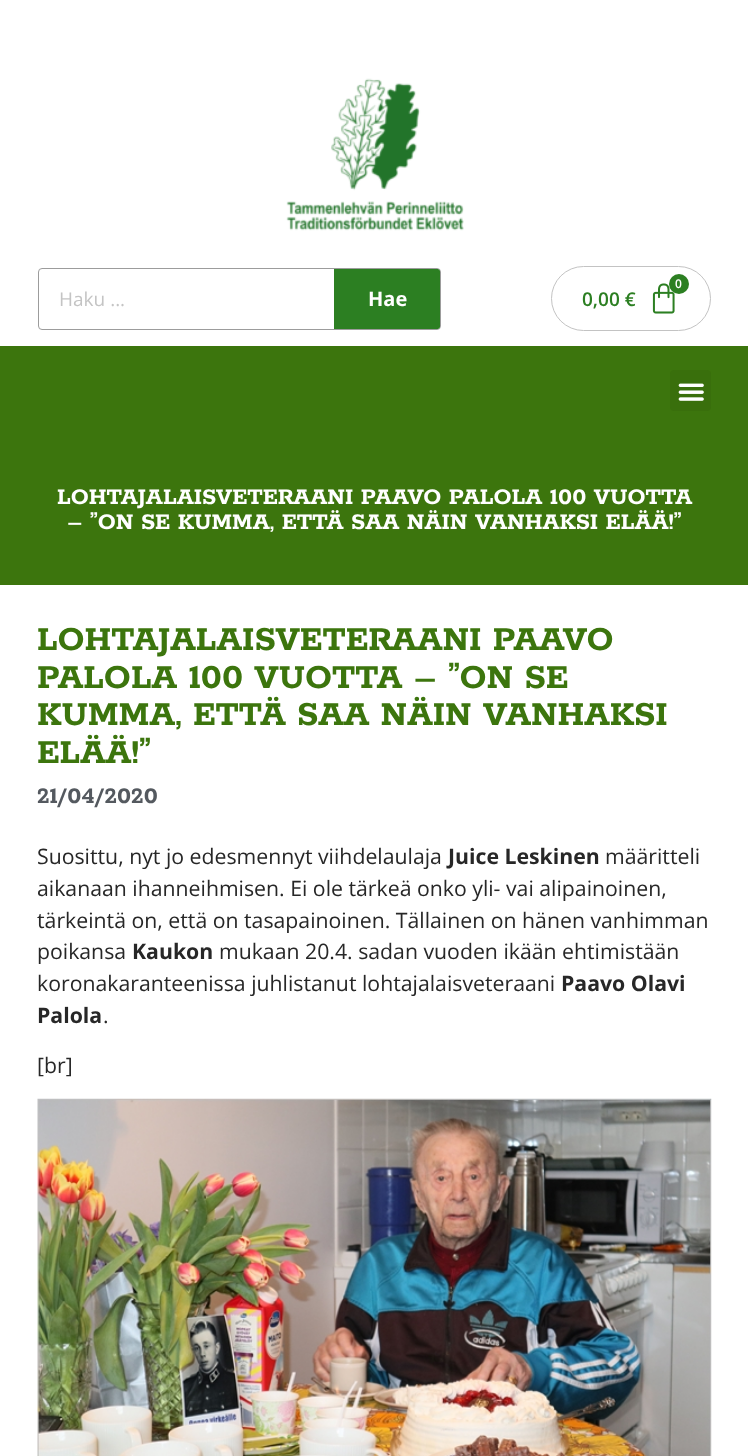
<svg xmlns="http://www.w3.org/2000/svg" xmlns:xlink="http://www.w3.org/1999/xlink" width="748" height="1456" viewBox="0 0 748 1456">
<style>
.cls-1{font:19px Open Sans;fill:#c4c4c4}
.cls-2{font:bold 20px Open Sans;fill:#ffffff}
.cls-3{font:600 12px Open Sans;fill:#ffffff}
.cls-4{font:600 19px Open Sans;fill:#2c7f22}
.cls-5{font:bold 25px Rokkitt;fill:#ffffff}
.cls-6{font:bold 37.5px Rokkitt;fill:#3c750d}
.cls-7{font:bold 25px Rokkitt;fill:#54595f}
.cls-8{font:21.25px Open Sans;fill:#272727}
.cls-9{font:bold 21.25px Open Sans;fill:#272727}
</style>
<rect width="100%" height="100%" fill="#ffffff"/>
<image xlink:href="image0.png" x="286" y="78" width="178" height="153"/>
<rect fill="none" stroke="#9c9c9c" x="38.5" y="268.5" width="402" height="61" rx="3.5"/>
<path fill="#2c7f22" d="M334 269H437.5C439 269 440 270 440 271.5V326.5C440 328 439 329 437.5 329H334Z"/>
<rect fill="none" stroke="#c3c3c3" x="551.5" y="266.5" width="159" height="64" rx="32"/>
<image xlink:href="image1.png" x="652" y="283" width="23" height="31"/>
<circle fill="#2c7f22" cx="679" cy="284" r="10"/>
<rect fill="#3c750d" x="0" y="346" width="748" height="239"/>
<rect fill="#396f0c" x="670" y="370" width="41" height="41" rx="4"/>
<image xlink:href="image2.png" x="678" y="383" width="26" height="18"/>
<image xlink:href="image3.png" x="37" y="1098" width="675" height="358"/>
<text class="cls-1" x="59" y="306">Haku ...</text>
<text class="cls-2" x="368" y="306">Hae</text>
<text class="cls-3" x="675" y="288">0</text>
<text class="cls-4" x="582" y="306">0,00 €</text>
<text class="cls-5" x="57" y="504">LOHTAJALAISVETERAANI PAAVO PALOLA 100 VUOTTA</text>
<text class="cls-5" x="67" y="529">– ”ON SE KUMMA, ETTÄ SAA NÄIN VANHAKSI ELÄÄ!”</text>
<text class="cls-6"><tspan x="37" y="650">LOHTAJALAISVETERAANI PAAVO</tspan><tspan x="37" y="688">PALOLA 100 VUOTTA – ”ON SE</tspan><tspan x="37" y="725">KUMMA, ETTÄ SAA NÄIN VANHAKSI</tspan><tspan x="37" y="763">ELÄÄ!”</tspan></text>
<text class="cls-7" x="37" y="803">21/04/2020</text>
<text class="cls-8" x="37" y="864">Suosittu, nyt jo edesmennyt viihdelaulaja</text>
<text class="cls-9" x="448" y="864">Juice Leskinen</text>
<text class="cls-8" x="605" y="864">määritteli</text>
<text class="cls-8"><tspan x="37" y="896">aikanaan ihanneihmisen. Ei ole tärkeä onko yli- vai alipainoinen,</tspan><tspan x="37" y="928">tärkeintä on, että on tasapainoinen. Tällainen on hänen vanhimman</tspan><tspan x="37" y="959">poikansa</tspan></text>
<text class="cls-9" x="132" y="959">Kaukon</text>
<text class="cls-8" x="219" y="959">mukaan 20.4. sadan vuoden ikään ehtimistään</text>
<text class="cls-8" x="37" y="991">koronakaranteenissa juhlistanut lohtajalaisveteraani</text>
<text class="cls-9" x="561" y="991">Paavo Olavi</text>
<text class="cls-9" x="37" y="1023">Palola</text>
<text class="cls-8" x="103" y="1023">.</text>
<text class="cls-8" x="37" y="1073">[br]</text>
</svg>
